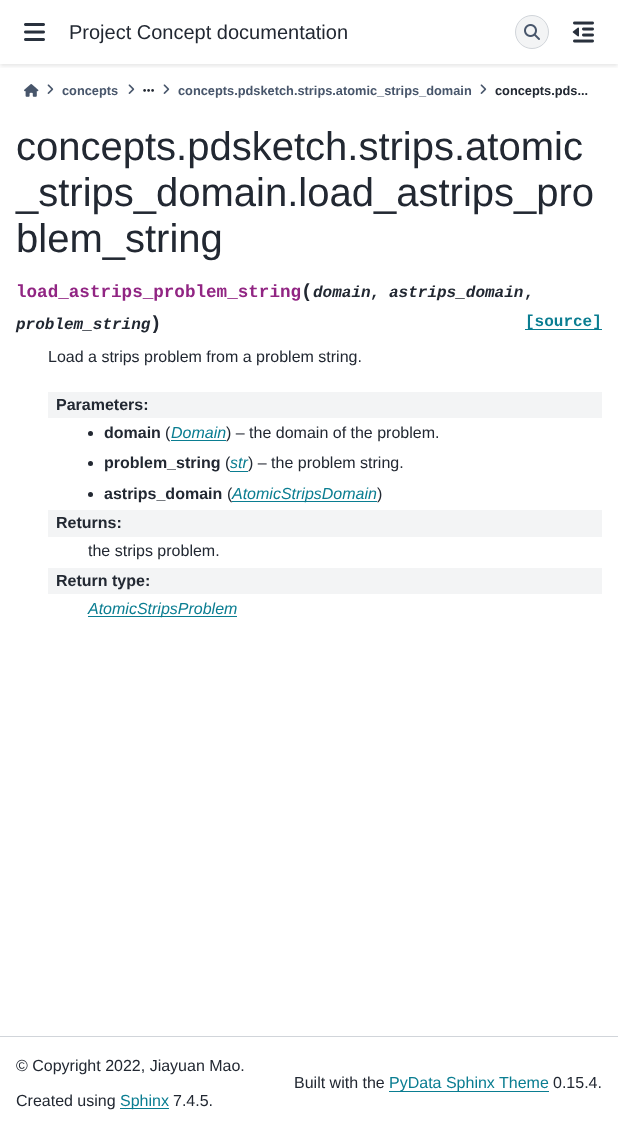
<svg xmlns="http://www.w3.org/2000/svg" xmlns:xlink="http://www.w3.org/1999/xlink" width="618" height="1130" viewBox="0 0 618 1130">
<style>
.cls-1{font:20px Liberation Sans;fill:#222832}
.cls-2{font:bold 12.8px Liberation Sans;fill:#48566b}
.cls-3{font:bold 12.8px Liberation Sans;fill:#222832}
.cls-4{font:40px Liberation Sans;fill:#222832}
.cls-5{font:bold 17.6px Liberation Mono;fill:#912583}
.cls-6{font:bold 19px Liberation Mono;fill:#222832}
.cls-7{font:italic bold 16px Liberation Mono;fill:#222832}
.cls-8{font:bold 16px Liberation Mono;fill:#222832}
.cls-9{font:bold 16px Liberation Mono;fill:#0a7d91}
.cls-10{font:16px Liberation Sans;fill:#222832}
.cls-11{font:bold 16px Liberation Sans;fill:#222832}
.cls-12{font:italic 16px Liberation Sans;fill:#0a7d91}
.cls-13{font:16px Liberation Sans;fill:#0a7d91}
</style>
<defs>
<clipPath id="clip1"><rect x="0" y="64" width="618" height="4"/></clipPath>
</defs>
<rect width="100%" height="100%" fill="#ffffff"/>
<g clip-path="url(#clip1)">
<rect fill="#000000" fill-opacity="0.1" filter="blur(2px)" x="0" y="2" width="618" height="64"/>
</g>
<image xlink:href="image0.png" x="24" y="23" width="21" height="18"/>
<circle fill="#f3f4f5" stroke="#d1d5da" cx="532" cy="32" r="16.5"/>
<image xlink:href="image1.png" x="524" y="24" width="16" height="16"/>
<image xlink:href="image2.png" x="572" y="21" width="22" height="22"/>
<image xlink:href="image3.png" x="24" y="84" width="15" height="13"/>
<image xlink:href="image4.png" x="47" y="84" width="7" height="10"/>
<image xlink:href="image4.png" x="128" y="84" width="7" height="10"/>
<image xlink:href="image5.png" x="143" y="89" width="11" height="3"/>
<image xlink:href="image4.png" x="163" y="84" width="7" height="10"/>
<image xlink:href="image4.png" x="480" y="84" width="7" height="10"/>
<rect fill="#0a7d91" x="525" y="329" width="77" height="1"/>
<rect fill="#f3f4f5" x="48" y="392" width="554" height="26"/>
<circle fill="#222832" cx="90.5" cy="433.5" r="2.5"/>
<rect fill="#0a7d91" x="171" y="440" width="55" height="1"/>
<circle fill="#222832" cx="90.5" cy="463.5" r="2.5"/>
<circle fill="#222832" cx="90.5" cy="494.5" r="2.5"/>
<rect fill="#0a7d91" x="232" y="501" width="145" height="1"/>
<rect fill="#f3f4f5" x="48" y="510" width="554" height="27"/>
<rect fill="#f3f4f5" x="48" y="568" width="554" height="26"/>
<rect fill="#0a7d91" x="88" y="616" width="149" height="1"/>
<rect fill="#d1d5da" x="0" y="1036" width="618" height="1"/>
<rect fill="#0a7d91" x="120" y="1108" width="49" height="1"/>
<rect fill="#0a7d91" x="389" y="1091" width="160" height="1"/>
<text class="cls-1" x="69" y="39">Project Concept documentation</text>
<text class="cls-2" x="62" y="95">concepts</text>
<text class="cls-2" x="178" y="95">concepts.pdsketch.strips.atomic_strips_domain</text>
<text class="cls-3" x="495" y="95">concepts.pds...</text>
<text class="cls-4"><tspan x="16" y="160">concepts.pdsketch.strips.atomic</tspan><tspan x="16" y="206">_strips_domain.load_astrips_pro</tspan><tspan x="16" y="252">blem_string</tspan></text>
<text class="cls-5" x="16" y="297">load_astrips_problem_string</text>
<text class="cls-6" x="301" y="297">(</text>
<text class="cls-7" x="313" y="297">domain</text>
<text class="cls-8" x="370" y="297">,</text>
<text class="cls-7" x="389" y="297">astrips_domain</text>
<text class="cls-8" x="524" y="297">,</text>
<text class="cls-7" x="16" y="329">problem_string</text>
<text class="cls-6" x="150" y="329">)</text>
<text class="cls-9" x="525" y="326">[source]</text>
<text class="cls-10" x="48" y="362">Load a strips problem from a problem string.</text>
<text class="cls-11" x="56" y="410">Parameters:</text>
<text class="cls-11" x="104" y="438">domain</text>
<text class="cls-10" x="165" y="438">(</text>
<text class="cls-12" x="171" y="438">Domain</text>
<text class="cls-10" x="226" y="438">) – the domain of the problem.</text>
<text class="cls-11" x="104" y="468">problem_string</text>
<text class="cls-10" x="225" y="468">(</text>
<text class="cls-12" x="230" y="468">str</text>
<rect fill="#0a7d91" x="230" y="471" width="18" height="1"/>
<text class="cls-10" x="248" y="468">) – the problem string.</text>
<text class="cls-11" x="104" y="499">astrips_domain</text>
<text class="cls-10" x="227" y="499">(</text>
<text class="cls-12" x="232" y="499">AtomicStripsDomain</text>
<text class="cls-10" x="377" y="499">)</text>
<text class="cls-11" x="56" y="528">Returns:</text>
<text class="cls-10" x="88" y="556">the strips problem.</text>
<text class="cls-11" x="56" y="586">Return type:</text>
<text class="cls-12" x="88" y="614">AtomicStripsProblem</text>
<text class="cls-10" x="16" y="1071">© Copyright 2022, Jiayuan Mao.</text>
<text class="cls-10" x="16" y="1106">Created using</text>
<text class="cls-13" x="120" y="1106">Sphinx</text>
<text class="cls-10" x="173" y="1106">7.4.5.</text>
<text class="cls-10" x="294" y="1088">Built with the</text>
<text class="cls-13" x="389" y="1088">PyData Sphinx Theme</text>
<text class="cls-10" x="553" y="1088">0.15.4.</text>
</svg>
